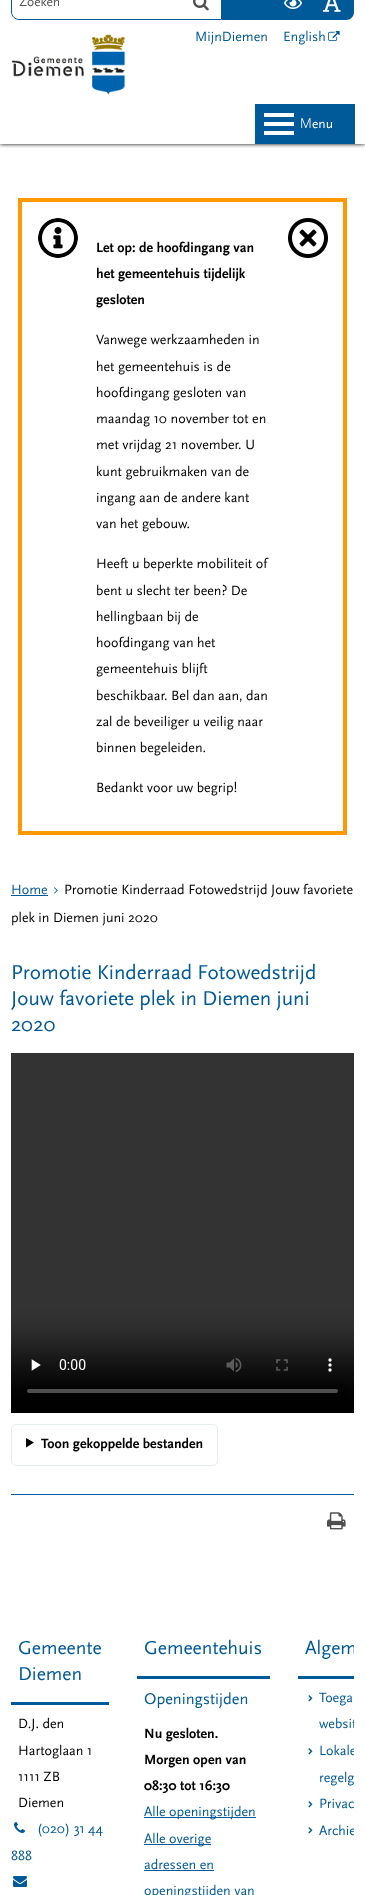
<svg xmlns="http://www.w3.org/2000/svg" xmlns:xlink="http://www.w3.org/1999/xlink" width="365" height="1895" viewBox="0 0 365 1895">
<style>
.cls-1{font:13.5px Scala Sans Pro;fill:#555555}
.cls-2{font:14px Scala Sans Pro;fill:#005999}
.cls-3{font:300 13.5px Noto Sans;fill:#ffffff}
.cls-4{font:13.5px Scala Sans Pro;fill:#ffffff}
.cls-5{font:bold 14px Scala Sans Pro;fill:#000000}
.cls-6{font:14px Scala Sans Pro;fill:#000000}
.cls-7{font:21px Scala Sans Pro;fill:#005999}
.cls-8{font:19.5px Scala Sans Pro;fill:#005999}
.cls-9{font:16.25px Scala Sans Pro;fill:#005999}
</style>
<defs>
<clipPath id="clip1"><rect x="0" y="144" width="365" height="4"/></clipPath>
<clipPath id="clip2"><rect x="11" y="1594" width="343" height="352"/></clipPath>
</defs>
<rect width="100%" height="100%" fill="#ffffff"/>
<g clip-path="url(#clip1)">
<rect fill="#000000" filter="blur(2px)" x="0" y="104" width="365" height="40"/>
</g>
<rect fill="#ffffff" x="0" y="99" width="365" height="5"/>
<path fill="none" stroke="#005999" d="M11.5-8.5H221.5V19.5H19C15 19.5 11.5 16 11.5 12Z"/>
<image xlink:href="image0.png" x="193" y="0" width="16" height="11"/>
<path fill="#005999" d="M222-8H354V12C354 16.5 350.5 20 346 20H222Z"/>
<image xlink:href="image1.png" x="284" y="0" width="18" height="9"/>
<image xlink:href="image2.png" x="322" y="0" width="19" height="12"/>
<image xlink:href="image3.png" x="328" y="31" width="12" height="10"/>
<image xlink:href="image4.png" x="11" y="34" width="115" height="61"/>
<rect fill="#005999" x="255" y="104" width="100" height="40"/>
<rect fill="#ffffff" x="264" y="131" width="30" height="4"/>
<rect fill="#ffffff" x="264" y="122" width="30" height="4"/>
<rect fill="#ffffff" x="264" y="113" width="30" height="4"/>
<rect fill="none" stroke="#ff9900" stroke-width="4" x="20" y="200" width="325" height="633"/>
<image xlink:href="image5.png" x="38" y="218" width="40" height="40"/>
<image xlink:href="image6.png" x="288" y="218" width="40" height="40"/>
<rect fill="#005999" x="11" y="895" width="37" height="1"/>
<image xlink:href="image7.png" x="54" y="887" width="4" height="7"/>
<image xlink:href="image8.png" x="11" y="1053" width="343" height="360"/>
<rect fill="none" stroke="#e6f0e9" x="11.5" y="1424.5" width="206" height="41" rx="4.5"/>
<path fill="#000000" d="M26 1438L34 1442.5L26 1447.5Z"/>
<rect fill="#005999" x="11" y="1494" width="343" height="1"/>
<image xlink:href="image9.png" x="327" y="1512" width="19" height="18"/>
<rect fill="#005999" x="11" y="1702" width="98" height="3"/>
<image xlink:href="image10.png" x="14" y="1822" width="11" height="11"/>
<image xlink:href="image11.png" x="13" y="1876" width="14" height="11"/>
<rect fill="#005999" x="137" y="1676" width="133" height="3"/>
<rect fill="#005999" x="144" y="1817" width="112" height="1"/>
<rect fill="#005999" x="144" y="1844" width="67" height="1"/>
<rect fill="#005999" x="144" y="1870" width="70" height="1"/>
<rect fill="#005999" x="298" y="1676" width="56" height="3"/>
<image xlink:href="image12.png" x="308" y="1695" width="5" height="7"/>
<image xlink:href="image12.png" x="308" y="1748" width="5" height="7"/>
<image xlink:href="image12.png" x="308" y="1801" width="5" height="7"/>
<image xlink:href="image12.png" x="308" y="1827" width="5" height="7"/>
<text class="cls-1" x="19" y="6">Zoeken</text>
<text class="cls-2" x="195" y="41">MijnDiemen</text>
<text class="cls-2" x="283" y="41">English</text>
<text class="cls-3" x="300" y="128">M</text>
<text class="cls-4" x="312" y="128">enu</text>
<text class="cls-5"><tspan x="96" y="252">Let op: de hoofdingang van</tspan><tspan x="96" y="278">het gemeentehuis tijdelijk</tspan><tspan x="96" y="304">gesloten</tspan></text>
<text class="cls-6"><tspan x="96" y="344">Vanwege werkzaamheden in</tspan><tspan x="96" y="371">het gemeentehuis is de</tspan><tspan x="96" y="397">hoofdingang gesloten van</tspan><tspan x="96" y="423">maandag 10 november tot en</tspan><tspan x="96" y="449">met vrijdag 21 november. U</tspan><tspan x="96" y="476">kunt gebruikmaken van de</tspan><tspan x="96" y="502">ingang aan de andere kant</tspan><tspan x="96" y="528">van het gebouw.</tspan></text>
<text class="cls-6"><tspan x="96" y="568">Heeft u beperkte mobiliteit of</tspan><tspan x="96" y="595">bent u slecht ter been? De</tspan><tspan x="96" y="621">hellingbaan bij de</tspan><tspan x="96" y="647">hoofdingang van het</tspan><tspan x="96" y="673">gemeentehuis blijft</tspan><tspan x="96" y="700">beschikbaar. Bel dan aan, dan</tspan><tspan x="96" y="726">zal de beveiliger u veilig naar</tspan><tspan x="96" y="752">binnen begeleiden.</tspan></text>
<text class="cls-6" x="96" y="792">Bedankt voor uw begrip!</text>
<text class="cls-2" x="11" y="894">Home</text>
<text class="cls-6" x="64" y="894">Promotie Kinderraad Fotowedstrijd Jouw favoriete</text>
<text class="cls-6" x="11" y="922">plek in Diemen juni 2020</text>
<text class="cls-7"><tspan x="11" y="979">Promotie Kinderraad Fotowedstrijd</tspan><tspan x="11" y="1005">Jouw favoriete plek in Diemen juni</tspan><tspan x="11" y="1031">2020</tspan></text>
<text class="cls-5" x="41" y="1448">Toon gekoppelde bestanden</text>
<text class="cls-8"><tspan x="18" y="1654">Gemeente</tspan><tspan x="18" y="1680">Diemen</tspan></text>
<text class="cls-6"><tspan x="18" y="1728">D.J. den</tspan><tspan x="18" y="1755">Hartoglaan 1</tspan><tspan x="18" y="1781">1111 ZB</tspan><tspan x="18" y="1807">Diemen</tspan></text>
<text class="cls-2" x="37" y="1833">(020) 31 44</text>
<text class="cls-2" x="11" y="1860">888</text>
<text class="cls-8" x="144" y="1654">Gemeentehuis</text>
<text class="cls-9" x="144" y="1704">Openingstijden</text>
<text class="cls-5"><tspan x="144" y="1738">Nu gesloten.</tspan><tspan x="144" y="1764">Morgen open van</tspan><tspan x="144" y="1790">08:30 tot 16:30</tspan></text>
<text class="cls-2"><tspan x="144" y="1816">Alle openingstijden</tspan><tspan x="144" y="1843">Alle overige</tspan><tspan x="144" y="1869">adressen en</tspan><tspan x="144" y="1895">openingstijden van</tspan></text>
<g clip-path="url(#clip2)">
<text class="cls-8" x="305" y="1654">Algem</text>
</g>
<text class="cls-2" x="319" y="1702">Toega</text>
<g clip-path="url(#clip2)">
<text class="cls-2"><tspan x="319" y="1728">websit</tspan><tspan x="319" y="1755">Lokale</tspan></text>
</g>
<text class="cls-2"><tspan x="319" y="1782">regelg</tspan><tspan x="319" y="1808">Privac</tspan></text>
<g clip-path="url(#clip2)">
<text class="cls-2" x="319" y="1835">Archie</text>
</g>
</svg>
